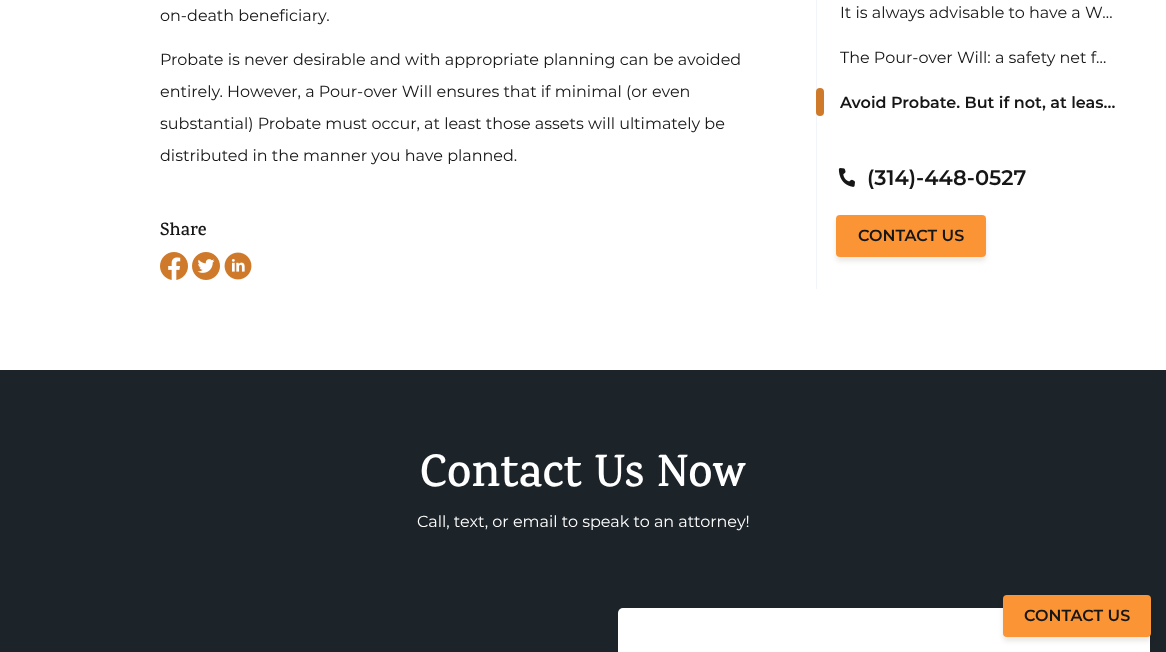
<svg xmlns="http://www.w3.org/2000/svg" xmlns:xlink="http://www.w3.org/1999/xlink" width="1166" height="652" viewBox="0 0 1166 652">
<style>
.cls-1{font:16px Montserrat;fill:#161616}
.cls-2{font:600 18px Karma;fill:#161616}
.cls-3{font:600 16px Montserrat;fill:#161616}
.cls-4{font:600 21px Montserrat;fill:#161616}
.cls-5{font:600 46px Karma;fill:#ffffff}
.cls-6{font:16px Montserrat;fill:#ffffff}
</style>
<rect width="100%" height="100%" fill="#ffffff"/>
<image xlink:href="image0.png" x="160" y="252" width="28" height="28"/>
<image xlink:href="image1.png" x="192" y="252" width="28" height="28"/>
<image xlink:href="image2.png" x="224" y="252" width="28" height="28"/>
<rect fill="#f1f4f8" x="816" y="0" width="1" height="289"/>
<rect fill="#cf792a" x="816" y="88" width="8" height="28" rx="4"/>
<image xlink:href="image3.png" x="838" y="168" width="17" height="19"/>
<rect fill="#241503" fill-opacity="0.1" filter="blur(2.5px)" x="836" y="219" width="150" height="42" rx="4"/>
<rect fill="#fb9434" x="836" y="215" width="150" height="42" rx="4"/>
<rect fill="#1c2329" x="0" y="370" width="1166" height="282"/>
<rect fill="#ffffff" x="618" y="608" width="532" height="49" rx="5"/>
<rect fill="#241503" fill-opacity="0.1" filter="blur(2.5px)" x="1003" y="599" width="148" height="42" rx="4"/>
<rect fill="#fb9434" x="1003" y="595" width="148" height="42" rx="4"/>
<text class="cls-1" x="160" y="21">on-death beneficiary.</text>
<text class="cls-1" x="160" y="65">Probate is never desirable and with appropriate planning can be avoided</text>
<text class="cls-1" x="160" y="97">entirely. However, a Pour-over Will ensures that if minimal (or even</text>
<text class="cls-1" x="160" y="129">substantial) Probate must occur, at least those assets will ultimately be</text>
<text class="cls-1" x="160" y="161">distributed in the manner you have planned.</text>
<text class="cls-2" x="160" y="235">Share</text>
<text class="cls-1" x="840" y="18">It is always advisable to have a W…</text>
<text class="cls-1" x="840" y="63">The Pour-over Will: a safety net f…</text>
<text class="cls-3" x="840" y="108">Avoid Probate. But if not, at leas…</text>
<text class="cls-4" x="867" y="185">(314)-448-0527</text>
<text class="cls-3" x="858" y="241">CONTACT US</text>
<text class="cls-5" x="420" y="486">Contact Us Now</text>
<text class="cls-6" x="417" y="527">Call, text, or email to speak to an attorney!</text>
<text class="cls-3" x="1024" y="621">CONTACT US</text>
</svg>
